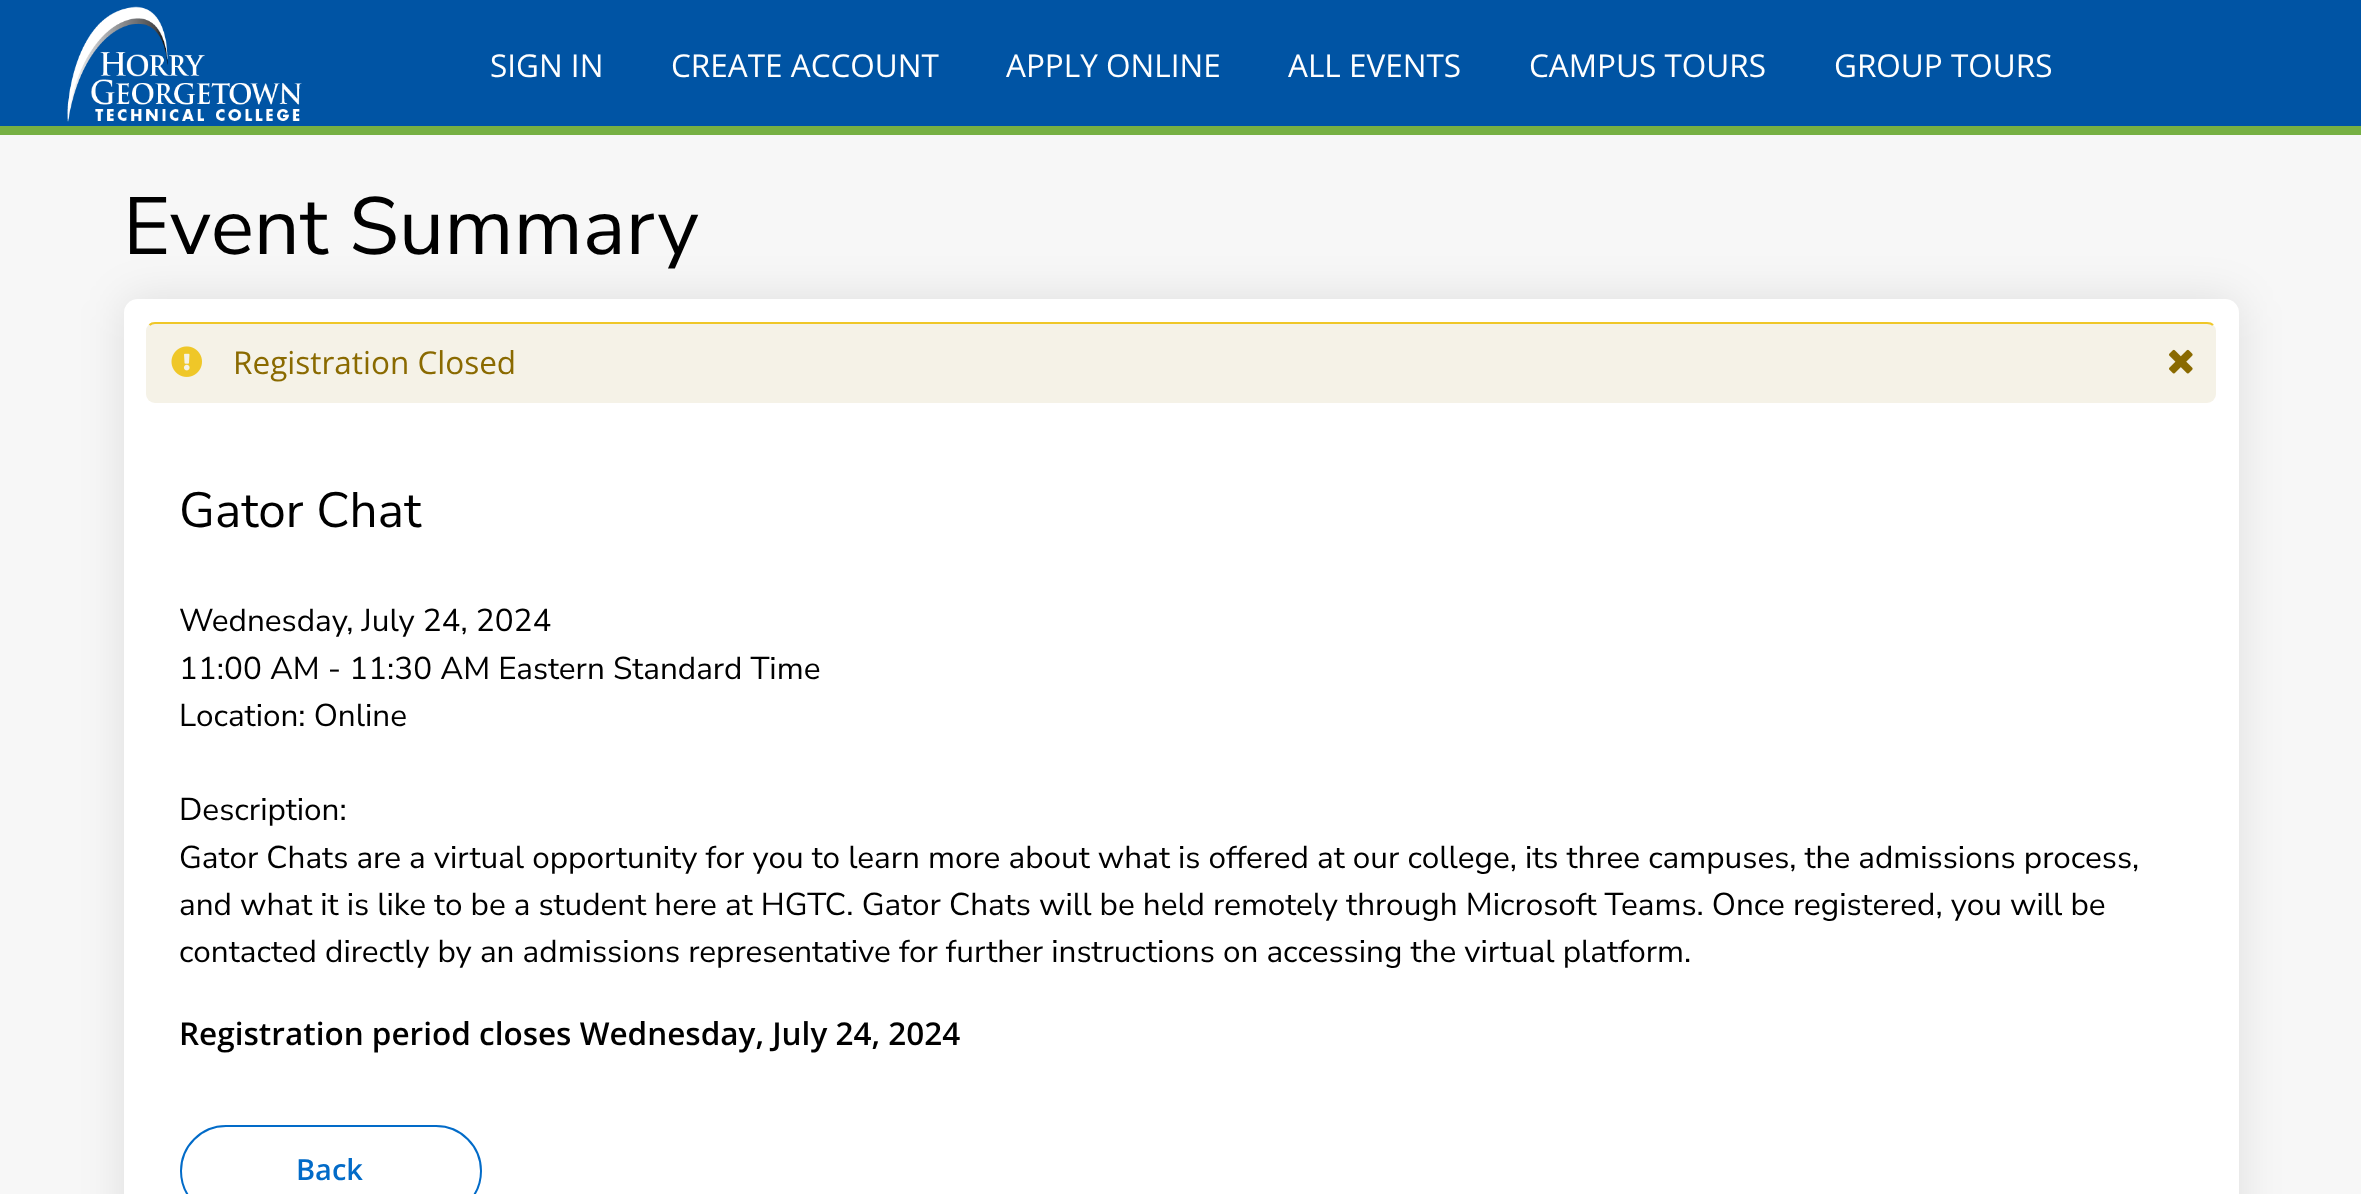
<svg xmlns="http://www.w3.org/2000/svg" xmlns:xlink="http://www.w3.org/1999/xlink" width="2361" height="1194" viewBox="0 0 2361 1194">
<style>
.cls-1{font:31.5px Open Sans;fill:#ffffff}
.cls-2{font:81px Nunito Sans;fill:#000000}
.cls-3{font:31.5px Open Sans;fill:#8a6a00}
.cls-4{font:49.5px Nunito Sans;fill:#000000}
.cls-5{font:31.5px Nunito Sans;fill:#000000}
.cls-6{font:600 31.5px Open Sans;fill:#000000}
.cls-7{font:600 29px Open Sans;fill:#026bc8}
</style>
<rect width="100%" height="100%" fill="#f7f7f7"/>
<rect fill="#0054a4" x="0" y="0" width="2361" height="126"/>
<rect fill="#76b043" x="0" y="126" width="2361" height="9"/>
<image xlink:href="image0.png" x="67" y="6" width="235" height="116"/>
<rect fill="#000000" fill-opacity="0.1" filter="blur(22.5px)" x="124" y="299" width="2115" height="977" rx="14"/>
<rect fill="#ffffff" x="124" y="299" width="2115" height="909" rx="14"/>
<rect fill="#f5f2e7" x="146" y="322" width="2070" height="81" rx="9"/>
<path fill="none" stroke="#efc728" stroke-width="2.2" d="M149.5 325C151 323.5 153 323 155 323H2207C2209.5 323 2211.5 323.5 2213 325"/>
<image xlink:href="image1.png" x="171" y="346" width="31" height="31"/>
<image xlink:href="image2.png" x="2169" y="349" width="24" height="25"/>
<rect fill="none" stroke="#026bc8" stroke-width="2" x="181" y="1126" width="300" height="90" rx="45"/>
<text class="cls-1" x="490" y="77">SIGN IN</text>
<text class="cls-1" x="671" y="77">CREATE ACCOUNT</text>
<text class="cls-1" x="1006" y="77">APPLY ONLINE</text>
<text class="cls-1" x="1288" y="77">ALL EVENTS</text>
<text class="cls-1" x="1529" y="77">CAMPUS TOURS</text>
<text class="cls-1" x="1834" y="77">GROUP TOURS</text>
<text class="cls-2" x="123" y="254">Event Summary</text>
<text class="cls-3" x="233" y="374">Registration Closed</text>
<text class="cls-4" x="179" y="527">Gator Chat</text>
<text class="cls-5"><tspan x="179" y="631">Wednesday, July 24, 2024</tspan><tspan x="179" y="679">11:00 AM - 11:30 AM Eastern Standard Time</tspan><tspan x="179" y="726">Location: Online</tspan></text>
<text class="cls-5"><tspan x="179" y="820">Description:</tspan><tspan x="179" y="868">Gator Chats are a virtual opportunity for you to learn more about what is offered at our college, its three campuses, the admissions process,</tspan><tspan x="179" y="915">and what it is like to be a student here at HGTC. Gator Chats will be held remotely through Microsoft Teams. Once registered, you will be</tspan><tspan x="179" y="962">contacted directly by an admissions representative for further instructions on accessing the virtual platform.</tspan></text>
<text class="cls-6" x="179" y="1045">Registration period closes Wednesday, July 24, 2024</text>
<text class="cls-7" x="296" y="1180">Back</text>
</svg>
